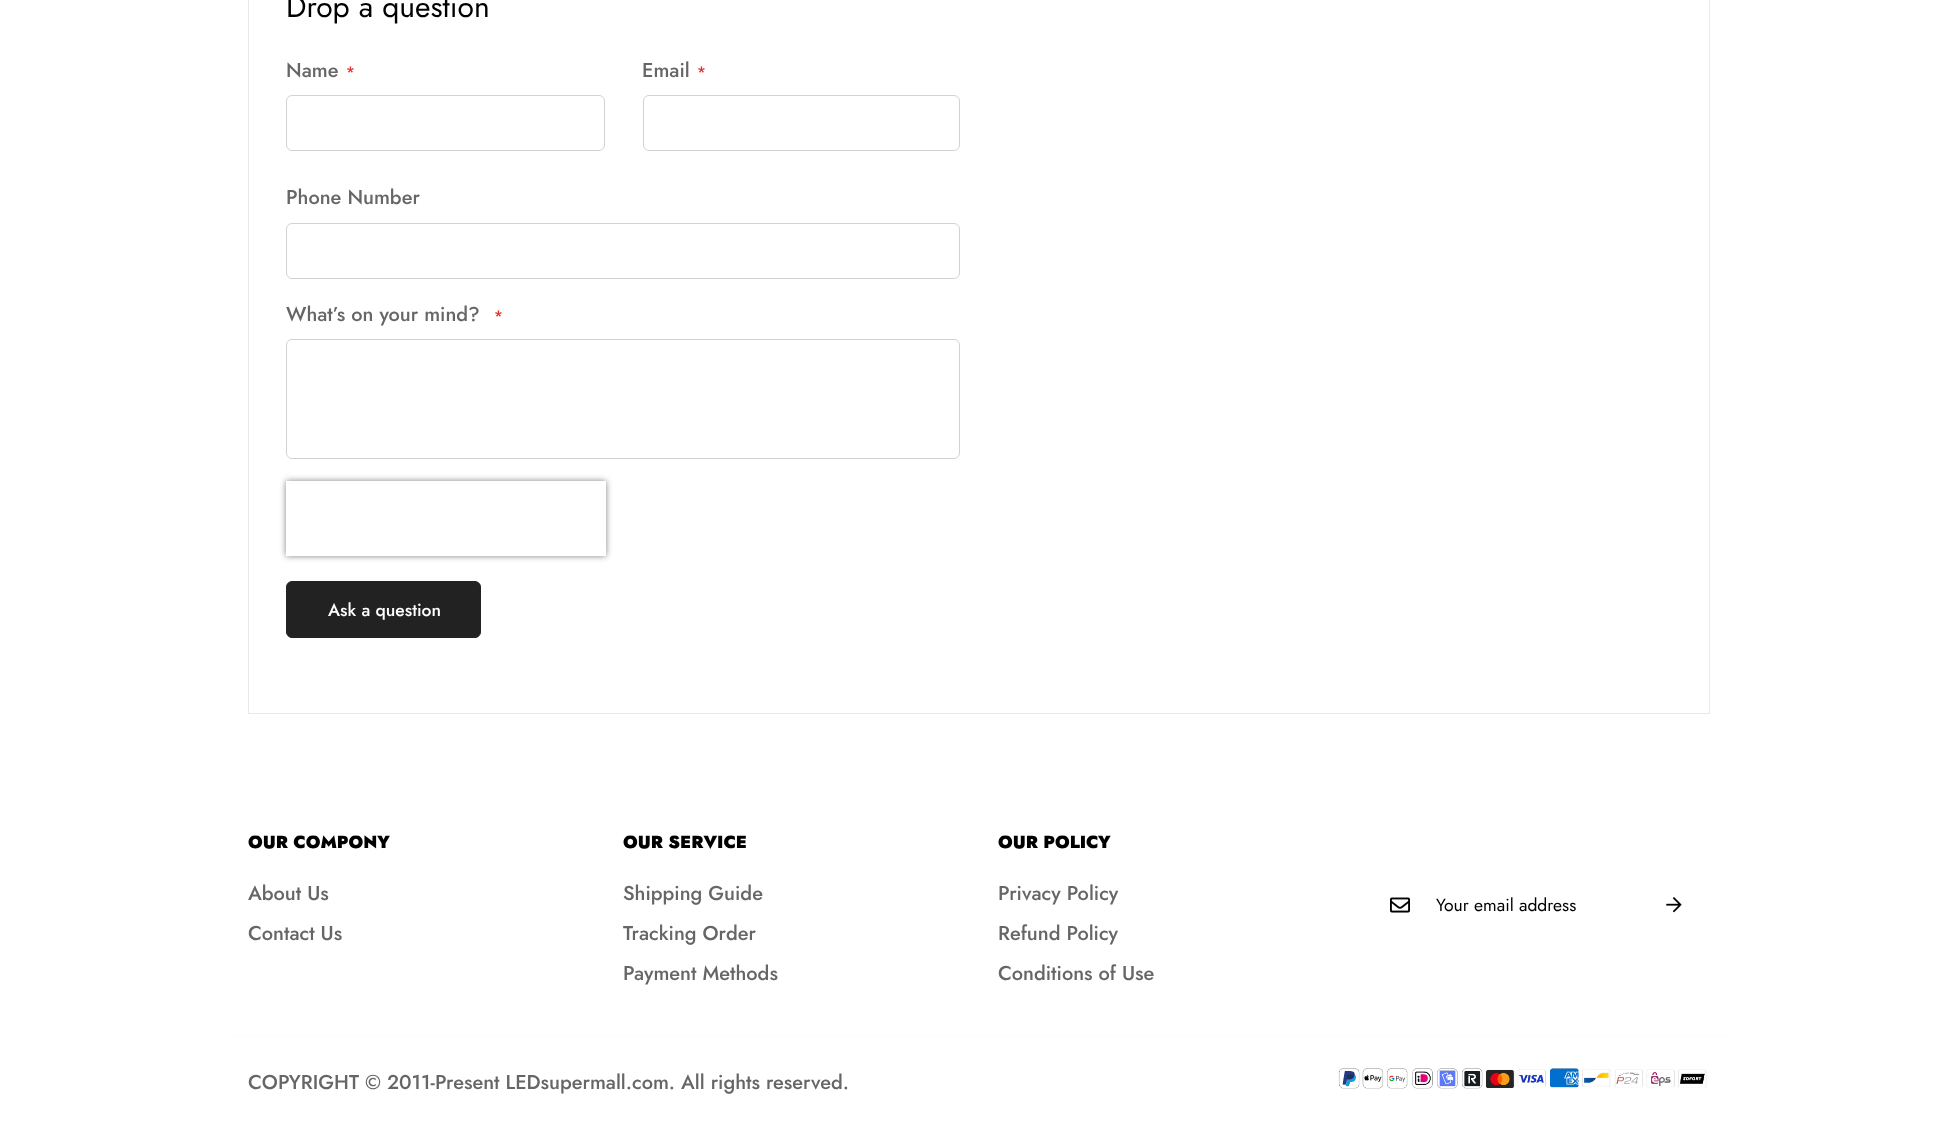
<svg xmlns="http://www.w3.org/2000/svg" xmlns:xlink="http://www.w3.org/1999/xlink" width="1957" height="1127" viewBox="0 0 1957 1127">
<style>
.cls-1{font:30px Jost;fill:#000000}
.cls-2{font:500 20px Jost;fill:#666666}
.cls-3{font:500 15px Jost;fill:#e02b27}
.cls-4{font:500 17.5px Jost;fill:#ffffff}
.cls-5{font:900 17.5px Jost;fill:#000000}
.cls-6{font:17.5px Jost;fill:#000000}
</style>
<defs>
<clipPath id="clip1"><path d="M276 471H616V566H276ZM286 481H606V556H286Z" clip-rule="evenodd"/></clipPath>
</defs>
<rect width="100%" height="100%" fill="#ffffff"/>
<rect fill="none" stroke="#e9e9e9" x="248.5" y="-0.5" width="1461" height="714"/>
<rect fill="none" stroke="#d2d2d2" x="286.5" y="95.5" width="318" height="55" rx="5.5"/>
<rect fill="none" stroke="#d2d2d2" x="643.5" y="95.5" width="316" height="55" rx="5.5"/>
<rect fill="none" stroke="#d2d2d2" x="286.5" y="223.5" width="673" height="55" rx="5.5"/>
<rect fill="none" stroke="#d2d2d2" x="286.5" y="339.5" width="673" height="119" rx="5.5"/>
<g clip-path="url(#clip1)">
<rect fill="#808080" filter="blur(3px)" x="286" y="481" width="320" height="75"/>
</g>
<rect fill="#222222" stroke="#222222" x="286.5" y="581.5" width="194" height="56" rx="5.5"/>
<image xlink:href="image0.png" x="1390" y="897" width="20" height="16"/>
<image xlink:href="image1.png" x="1666" y="897" width="16" height="16"/>
<rect fill="#fcfcfc" x="229" y="1036" width="1500" height="1"/>
<image xlink:href="image2.png" x="1338" y="1068" width="369" height="21"/>
<text class="cls-1" x="286" y="17">Drop a question</text>
<text class="cls-2" x="286" y="77">Name</text>
<text class="cls-3" x="346" y="77">*</text>
<text class="cls-2" x="642" y="77">Email</text>
<text class="cls-3" x="697" y="77">*</text>
<text class="cls-2" x="286" y="204">Phone Number</text>
<text class="cls-2" x="286" y="321">What’s on your mind?</text>
<text class="cls-3" x="494" y="321">*</text>
<text class="cls-4" x="328" y="616">Ask a question</text>
<text class="cls-5" x="248" y="848">OUR COMPONY</text>
<text class="cls-2" x="248" y="900">About Us</text>
<text class="cls-2" x="248" y="940">Contact Us</text>
<text class="cls-5" x="623" y="848">OUR SERVICE</text>
<text class="cls-2" x="623" y="900">Shipping Guide</text>
<text class="cls-2" x="623" y="940">Tracking Order</text>
<text class="cls-2" x="623" y="980">Payment Methods</text>
<text class="cls-5" x="998" y="848">OUR POLICY</text>
<text class="cls-2" x="998" y="900">Privacy Policy</text>
<text class="cls-2" x="998" y="940">Refund Policy</text>
<text class="cls-2" x="998" y="980">Conditions of Use</text>
<text class="cls-6" x="1436" y="911">Your email address</text>
<text class="cls-2" x="248" y="1089">COPYRIGHT © 2011-Present LEDsupermall.com. All rights reserved.</text>
</svg>
